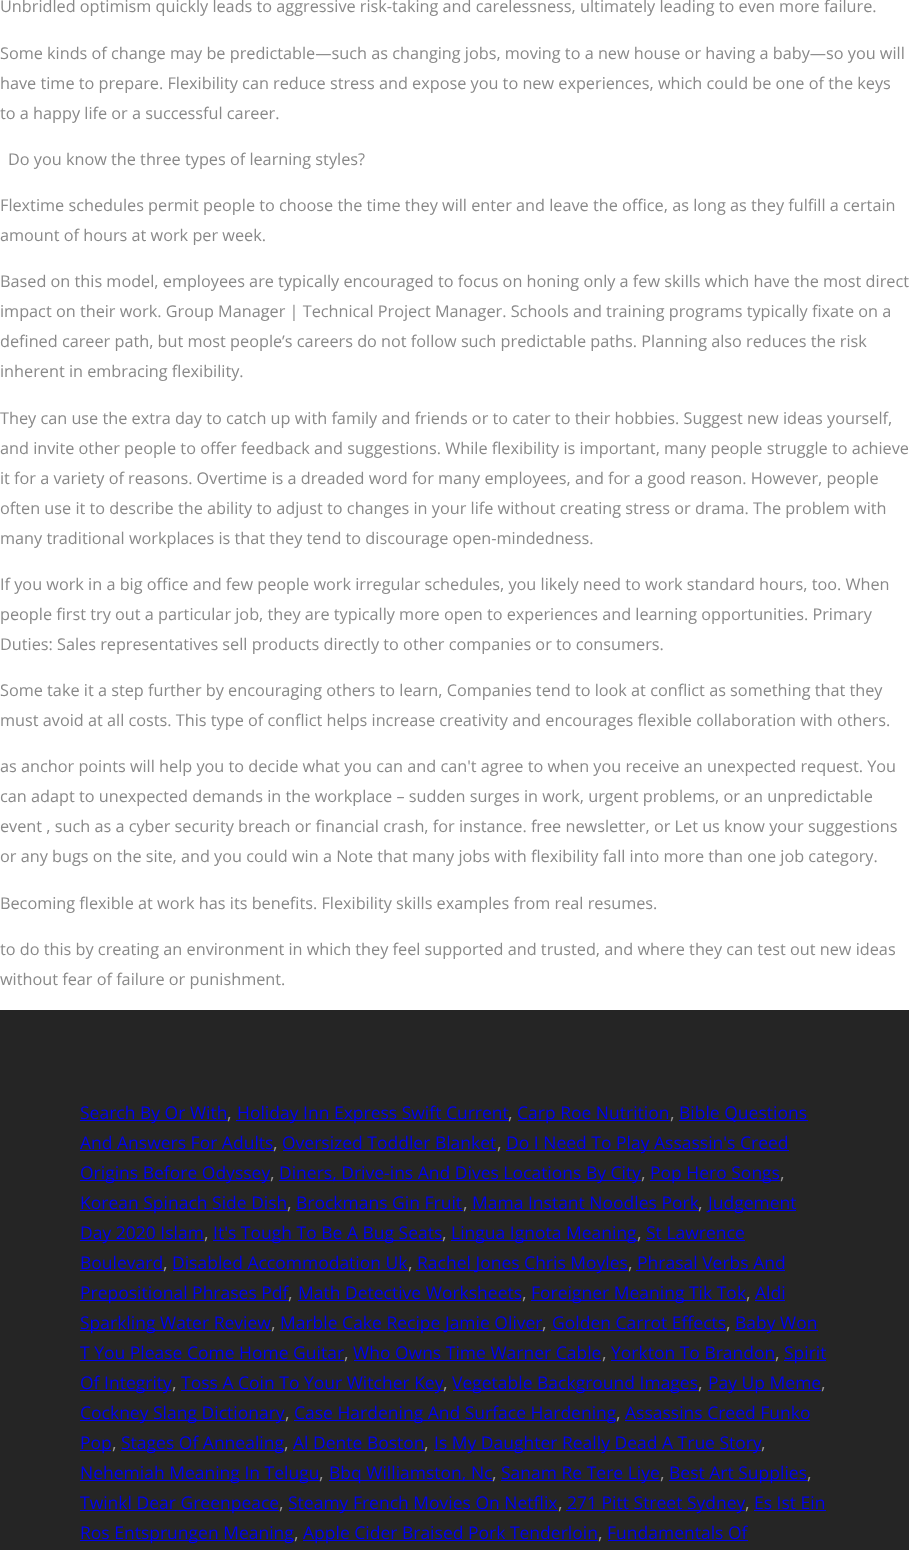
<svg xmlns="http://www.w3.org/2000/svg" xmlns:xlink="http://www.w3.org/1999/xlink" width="909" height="1550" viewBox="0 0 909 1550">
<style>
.cls-1{font:16.25px Open Sans;fill:#898989}
.cls-2{font:17.5px Open Sans;fill:#0000ee}
.cls-3{font:17.5px Open Sans;fill:#979797}
</style>
<rect width="100%" height="100%" fill="#ffffff"/>
<rect fill="#252525" x="0" y="1010" width="909" height="540"/>
<rect fill="#0000ee" x="80" y="1120" width="148" height="1"/>
<rect fill="#0000ee" x="236" y="1120" width="273" height="1"/>
<rect fill="#0000ee" x="518" y="1120" width="152" height="1"/>
<rect fill="#0000ee" x="679" y="1120" width="129" height="1"/>
<rect fill="#0000ee" x="80" y="1150" width="194" height="1"/>
<rect fill="#0000ee" x="283" y="1150" width="213" height="1"/>
<rect fill="#0000ee" x="506" y="1150" width="283" height="1"/>
<rect fill="#0000ee" x="80" y="1180" width="190" height="1"/>
<rect fill="#0000ee" x="279" y="1180" width="362" height="1"/>
<rect fill="#0000ee" x="650" y="1180" width="130" height="1"/>
<rect fill="#0000ee" x="80" y="1210" width="208" height="1"/>
<rect fill="#0000ee" x="296" y="1210" width="167" height="1"/>
<rect fill="#0000ee" x="471" y="1210" width="228" height="1"/>
<rect fill="#0000ee" x="708" y="1210" width="88" height="1"/>
<rect fill="#0000ee" x="80" y="1240" width="124" height="1"/>
<rect fill="#0000ee" x="213" y="1240" width="230" height="1"/>
<rect fill="#0000ee" x="451" y="1240" width="187" height="1"/>
<rect fill="#0000ee" x="646" y="1240" width="99" height="1"/>
<rect fill="#0000ee" x="80" y="1270" width="84" height="1"/>
<rect fill="#0000ee" x="173" y="1270" width="235" height="1"/>
<rect fill="#0000ee" x="416" y="1270" width="212" height="1"/>
<rect fill="#0000ee" x="636" y="1270" width="149" height="1"/>
<rect fill="#0000ee" x="80" y="1300" width="209" height="1"/>
<rect fill="#0000ee" x="298" y="1300" width="223" height="1"/>
<rect fill="#0000ee" x="531" y="1300" width="215" height="1"/>
<rect fill="#0000ee" x="755" y="1300" width="30" height="1"/>
<rect fill="#0000ee" x="80" y="1330" width="191" height="1"/>
<rect fill="#0000ee" x="280" y="1330" width="263" height="1"/>
<rect fill="#0000ee" x="551" y="1330" width="175" height="1"/>
<rect fill="#0000ee" x="735" y="1330" width="83" height="1"/>
<rect fill="#0000ee" x="80" y="1360" width="264" height="1"/>
<rect fill="#0000ee" x="354" y="1360" width="247" height="1"/>
<rect fill="#0000ee" x="611" y="1360" width="164" height="1"/>
<rect fill="#0000ee" x="784" y="1360" width="42" height="1"/>
<rect fill="#0000ee" x="80" y="1390" width="91" height="1"/>
<rect fill="#0000ee" x="181" y="1390" width="263" height="1"/>
<rect fill="#0000ee" x="453" y="1390" width="246" height="1"/>
<rect fill="#0000ee" x="708" y="1390" width="113" height="1"/>
<rect fill="#0000ee" x="80" y="1420" width="205" height="1"/>
<rect fill="#0000ee" x="294" y="1420" width="322" height="1"/>
<rect fill="#0000ee" x="625" y="1420" width="185" height="1"/>
<rect fill="#0000ee" x="80" y="1450" width="31" height="1"/>
<rect fill="#0000ee" x="121" y="1450" width="163" height="1"/>
<rect fill="#0000ee" x="293" y="1450" width="132" height="1"/>
<rect fill="#0000ee" x="434" y="1450" width="327" height="1"/>
<rect fill="#0000ee" x="80" y="1480" width="240" height="1"/>
<rect fill="#0000ee" x="329" y="1480" width="164" height="1"/>
<rect fill="#0000ee" x="501" y="1480" width="159" height="1"/>
<rect fill="#0000ee" x="669" y="1480" width="139" height="1"/>
<rect fill="#0000ee" x="80" y="1510" width="199" height="1"/>
<rect fill="#0000ee" x="289" y="1510" width="269" height="1"/>
<rect fill="#0000ee" x="566" y="1510" width="179" height="1"/>
<rect fill="#0000ee" x="754" y="1510" width="72" height="1"/>
<rect fill="#0000ee" x="80" y="1540" width="214" height="1"/>
<rect fill="#0000ee" x="303" y="1540" width="295" height="1"/>
<rect fill="#0000ee" x="608" y="1540" width="140" height="1"/>
<text class="cls-1" x="0" y="12">Unbridled optimism quickly leads to aggressive risk-taking and carelessness, ultimately leading to even more failure.</text>
<text class="cls-1"><tspan x="0" y="59">Some kinds of change may be predictable—such as changing jobs, moving to a new house or having a baby—so you will</tspan><tspan x="0" y="89">have time to prepare. Flexibility can reduce stress and expose you to new experiences, which could be one of the keys</tspan><tspan x="0" y="119">to a happy life or a successful career.</tspan></text>
<text class="cls-1" x="8" y="165">Do you know the three types of learning styles?</text>
<text class="cls-1"><tspan x="0" y="211">Flextime schedules permit people to choose the time they will enter and leave the office, as long as they fulfill a certain</tspan><tspan x="0" y="241">amount of hours at work per week.</tspan></text>
<text class="cls-1"><tspan x="0" y="287">Based on this model, employees are typically encouraged to focus on honing only a few skills which have the most direct</tspan><tspan x="0" y="317">impact on their work. Group Manager | Technical Project Manager. Schools and training programs typically fixate on a</tspan><tspan x="0" y="347">defined career path, but most people’s careers do not follow such predictable paths. Planning also reduces the risk</tspan><tspan x="0" y="377">inherent in embracing flexibility.</tspan></text>
<text class="cls-1"><tspan x="0" y="424">They can use the extra day to catch up with family and friends or to cater to their hobbies. Suggest new ideas yourself,</tspan><tspan x="0" y="454">and invite other people to offer feedback and suggestions. While flexibility is important, many people struggle to achieve</tspan><tspan x="0" y="484">it for a variety of reasons. Overtime is a dreaded word for many employees, and for a good reason. However, people</tspan><tspan x="0" y="514">often use it to describe the ability to adjust to changes in your life without creating stress or drama. The problem with</tspan><tspan x="0" y="544">many traditional workplaces is that they tend to discourage open-mindedness.</tspan></text>
<text class="cls-1"><tspan x="0" y="590">If you work in a big office and few people work irregular schedules, you likely need to work standard hours, too. When</tspan><tspan x="0" y="620">people first try out a particular job, they are typically more open to experiences and learning opportunities. Primary</tspan><tspan x="0" y="650">Duties: Sales representatives sell products directly to other companies or to consumers.</tspan></text>
<text class="cls-1"><tspan x="0" y="696">Some take it a step further by encouraging others to learn, Companies tend to look at conflict as something that they</tspan><tspan x="0" y="726">must avoid at all costs. This type of conflict helps increase creativity and encourages flexible collaboration with others.</tspan></text>
<text class="cls-1"><tspan x="0" y="772">as anchor points will help you to decide what you can and can't agree to when you receive an unexpected request. You</tspan><tspan x="0" y="802">can adapt to unexpected demands in the workplace – sudden surges in work, urgent problems, or an unpredictable</tspan><tspan x="0" y="832">event , such as a cyber security breach or financial crash, for instance. free newsletter, or Let us know your suggestions</tspan><tspan x="0" y="862">or any bugs on the site, and you could win a Note that many jobs with flexibility fall into more than one job category.</tspan></text>
<text class="cls-1" x="0" y="909">Becoming flexible at work has its benefits. Flexibility skills examples from real resumes.</text>
<text class="cls-1"><tspan x="0" y="955">to do this by creating an environment in which they feel supported and trusted, and where they can test out new ideas</tspan><tspan x="0" y="985">without fear of failure or punishment.</tspan></text>
<text class="cls-2" x="80" y="1119">Search By Or With</text>
<text class="cls-3" x="227" y="1119">,</text>
<text class="cls-2" x="237" y="1119">Holiday Inn Express Swift Current</text>
<text class="cls-3" x="508" y="1119">,</text>
<text class="cls-2" x="517" y="1119">Carp Roe Nutrition</text>
<text class="cls-3" x="670" y="1119">,</text>
<text class="cls-2" x="679" y="1119">Bible Questions</text>
<text class="cls-2" x="80" y="1149">And Answers For Adults</text>
<text class="cls-3" x="273" y="1149">,</text>
<text class="cls-2" x="282" y="1149">Oversized Toddler Blanket</text>
<text class="cls-3" x="497" y="1149">,</text>
<text class="cls-2" x="506" y="1149">Do I Need To Play Assassin's Creed</text>
<text class="cls-2" x="80" y="1179">Origins Before Odyssey</text>
<text class="cls-3" x="270" y="1179">,</text>
<text class="cls-2" x="279" y="1179">Diners, Drive-ins And Dives Locations By City</text>
<text class="cls-3" x="641" y="1179">,</text>
<text class="cls-2" x="650" y="1179">Pop Hero Songs</text>
<text class="cls-3" x="780" y="1179">,</text>
<text class="cls-2" x="80" y="1209">Korean Spinach Side Dish</text>
<text class="cls-3" x="287" y="1209">,</text>
<text class="cls-2" x="296" y="1209">Brockmans Gin Fruit</text>
<text class="cls-3" x="463" y="1209">,</text>
<text class="cls-2" x="472" y="1209">Mama Instant Noodles Pork</text>
<text class="cls-3" x="698" y="1209">,</text>
<text class="cls-2" x="708" y="1209">Judgement</text>
<text class="cls-2" x="80" y="1239">Day 2020 Islam</text>
<text class="cls-3" x="204" y="1239">,</text>
<text class="cls-2" x="213" y="1239">It's Tough To Be A Bug Seats</text>
<text class="cls-3" x="442" y="1239">,</text>
<text class="cls-2" x="451" y="1239">Lingua Ignota Meaning</text>
<text class="cls-3" x="637" y="1239">,</text>
<text class="cls-2" x="646" y="1239">St Lawrence</text>
<text class="cls-2" x="80" y="1269">Boulevard</text>
<text class="cls-3" x="163" y="1269">,</text>
<text class="cls-2" x="172" y="1269">Disabled Accommodation Uk</text>
<text class="cls-3" x="408" y="1269">,</text>
<text class="cls-2" x="417" y="1269">Rachel Jones Chris Moyles</text>
<text class="cls-3" x="628" y="1269">,</text>
<text class="cls-2" x="637" y="1269">Phrasal Verbs And</text>
<text class="cls-2" x="80" y="1299">Prepositional Phrases Pdf</text>
<text class="cls-3" x="288" y="1299">,</text>
<text class="cls-2" x="298" y="1299">Math Detective Worksheets</text>
<text class="cls-3" x="522" y="1299">,</text>
<text class="cls-2" x="531" y="1299">Foreigner Meaning Tik Tok</text>
<text class="cls-3" x="746" y="1299">,</text>
<text class="cls-2" x="755" y="1299">Aldi</text>
<text class="cls-2" x="80" y="1329">Sparkling Water Review</text>
<text class="cls-3" x="271" y="1329">,</text>
<text class="cls-2" x="280" y="1329">Marble Cake Recipe Jamie Oliver</text>
<text class="cls-3" x="542" y="1329">,</text>
<text class="cls-2" x="552" y="1329">Golden Carrot Effects</text>
<text class="cls-3" x="726" y="1329">,</text>
<text class="cls-2" x="735" y="1329">Baby Won</text>
<text class="cls-2" x="80" y="1359">T You Please Come Home Guitar</text>
<text class="cls-3" x="344" y="1359">,</text>
<text class="cls-2" x="353" y="1359">Who Owns Time Warner Cable</text>
<text class="cls-3" x="602" y="1359">,</text>
<text class="cls-2" x="611" y="1359">Yorkton To Brandon</text>
<text class="cls-3" x="775" y="1359">,</text>
<text class="cls-2" x="784" y="1359">Spirit</text>
<text class="cls-2" x="80" y="1389">Of Integrity</text>
<text class="cls-3" x="172" y="1389">,</text>
<text class="cls-2" x="181" y="1389">Toss A Coin To Your Witcher Key</text>
<text class="cls-3" x="443" y="1389">,</text>
<text class="cls-2" x="452" y="1389">Vegetable Background Images</text>
<text class="cls-3" x="698" y="1389">,</text>
<text class="cls-2" x="708" y="1389">Pay Up Meme</text>
<text class="cls-3" x="821" y="1389">,</text>
<text class="cls-2" x="80" y="1419">Cockney Slang Dictionary</text>
<text class="cls-3" x="285" y="1419">,</text>
<text class="cls-2" x="294" y="1419">Case Hardening And Surface Hardening</text>
<text class="cls-3" x="616" y="1419">,</text>
<text class="cls-2" x="625" y="1419">Assassins Creed Funko</text>
<text class="cls-2" x="80" y="1449">Pop</text>
<text class="cls-3" x="112" y="1449">,</text>
<text class="cls-2" x="121" y="1449">Stages Of Annealing</text>
<text class="cls-3" x="284" y="1449">,</text>
<text class="cls-2" x="293" y="1449">Al Dente Boston</text>
<text class="cls-3" x="424" y="1449">,</text>
<text class="cls-2" x="434" y="1449">Is My Daughter Really Dead A True Story</text>
<text class="cls-3" x="761" y="1449">,</text>
<text class="cls-2" x="80" y="1479">Nehemiah Meaning In Telugu</text>
<text class="cls-3" x="319" y="1479">,</text>
<text class="cls-2" x="329" y="1479">Bbq Williamston, Nc</text>
<text class="cls-3" x="492" y="1479">,</text>
<text class="cls-2" x="501" y="1479">Sanam Re Tere Liye</text>
<text class="cls-3" x="660" y="1479">,</text>
<text class="cls-2" x="669" y="1479">Best Art Supplies</text>
<text class="cls-3" x="807" y="1479">,</text>
<text class="cls-2" x="80" y="1509">Twinkl Dear Greenpeace</text>
<text class="cls-3" x="279" y="1509">,</text>
<text class="cls-2" x="288" y="1509">Steamy French Movies On Netflix</text>
<text class="cls-3" x="558" y="1509">,</text>
<text class="cls-2" x="567" y="1509">271 Pitt Street Sydney</text>
<text class="cls-3" x="745" y="1509">,</text>
<text class="cls-2" x="754" y="1509">Es Ist Ein</text>
<text class="cls-2" x="80" y="1539">Ros Entsprungen Meaning</text>
<text class="cls-3" x="294" y="1539">,</text>
<text class="cls-2" x="303" y="1539">Apple Cider Braised Pork Tenderloin</text>
<text class="cls-3" x="598" y="1539">,</text>
<text class="cls-2" x="607" y="1539">Fundamentals Of</text>
</svg>
